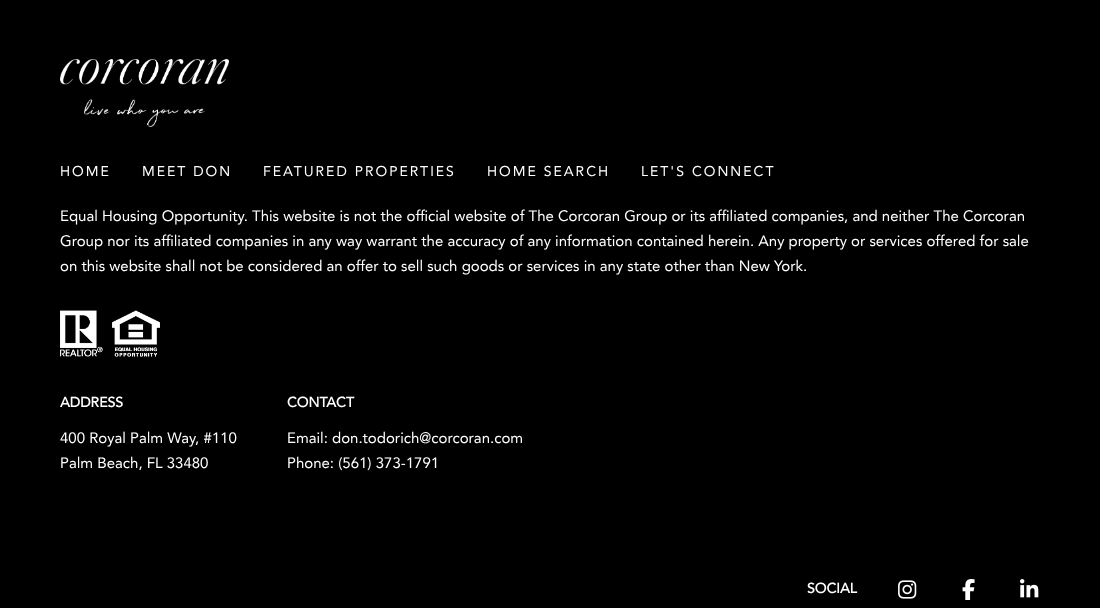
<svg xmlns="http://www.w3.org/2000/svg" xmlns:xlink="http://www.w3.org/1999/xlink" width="1100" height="608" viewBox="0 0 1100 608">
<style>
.cls-1{font:14px Avenir;letter-spacing:2px;fill:#ffffff}
.cls-2{font:15px Avenir;fill:#ffffff}
.cls-3{font:bold 14px Avenir;fill:#ffffff}
</style>
<rect width="100%" height="100%" fill="#000000"/>
<image xlink:href="image0.png" x="60" y="59" width="169" height="68"/>
<image xlink:href="image1.png" x="60" y="310" width="100" height="47"/>
<image xlink:href="image2.png" x="898" y="580" width="19" height="19"/>
<image xlink:href="image3.png" x="962" y="579" width="13" height="21"/>
<image xlink:href="image4.png" x="1020" y="579" width="19" height="19"/>
<text class="cls-1" x="60" y="176">HOME</text>
<text class="cls-1" x="142" y="176">MEET DON</text>
<text class="cls-1" x="263" y="176">FEATURED PROPERTIES</text>
<text class="cls-1" x="487" y="176">HOME SEARCH</text>
<text class="cls-1" x="641" y="176">LET'S CONNECT</text>
<text class="cls-2"><tspan x="60" y="221">Equal Housing Opportunity. This website is not the official website of The Corcoran Group or its affiliated companies, and neither The Corcoran</tspan><tspan x="60" y="246">Group nor its affiliated companies in any way warrant the accuracy of any information contained herein. Any property or services offered for sale</tspan><tspan x="60" y="271">on this website shall not be considered an offer to sell such goods or services in any state other than New York.</tspan></text>
<text class="cls-3" x="60" y="407">ADDRESS</text>
<text class="cls-2"><tspan x="60" y="443">400 Royal Palm Way, #110</tspan><tspan x="60" y="468">Palm Beach, FL 33480</tspan></text>
<text class="cls-3" x="287" y="407">CONTACT</text>
<text class="cls-2"><tspan x="287" y="443">Email: don.todorich@corcoran.com</tspan><tspan x="287" y="468">Phone: (561) 373-1791</tspan></text>
<text class="cls-3" x="807" y="593">SOCIAL</text>
</svg>
